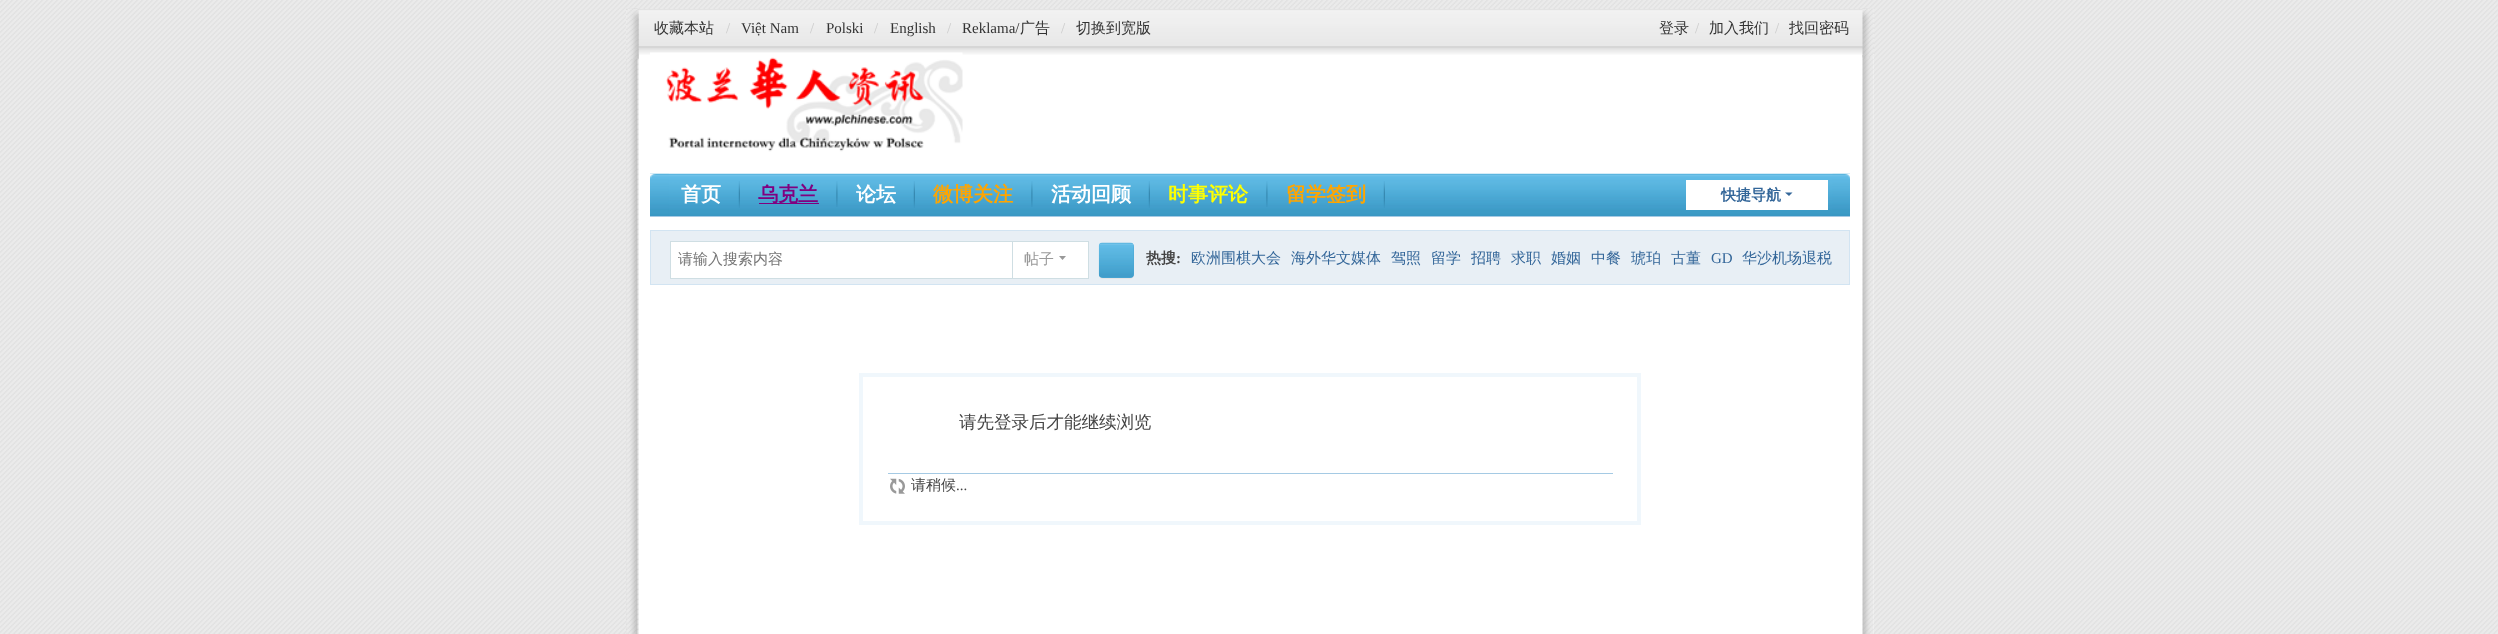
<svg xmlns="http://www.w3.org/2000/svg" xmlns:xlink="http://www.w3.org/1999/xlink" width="2498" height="634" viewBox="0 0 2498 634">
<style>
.cls-1{font:500 15px WenQuanYi Zen Hei;fill:#333333}
.cls-2{font:15px Liberation Serif;fill:#cccccc}
.cls-3{font:15px Liberation Serif;fill:#333333}
.cls-4{font:bold 20px WenQuanYi Zen Hei;fill:#ffffff}
.cls-5{font:bold 20px WenQuanYi Zen Hei;fill:#800080}
.cls-6{font:bold 20px WenQuanYi Zen Hei;fill:#ffa500}
.cls-7{font:bold 20px WenQuanYi Zen Hei;fill:#ffff00}
.cls-8{font:bold 15px WenQuanYi Zen Hei;fill:#336699}
.cls-9{font:500 15px WenQuanYi Zen Hei;fill:#757575}
.cls-10{font:500 15px WenQuanYi Zen Hei;fill:#999999}
.cls-11{font:bold 15px WenQuanYi Zen Hei;fill:#444444}
.cls-12{font:bold 15px Liberation Serif;fill:#444444}
.cls-13{font:500 15px WenQuanYi Zen Hei;fill:#336699}
.cls-14{font:15px Liberation Serif;fill:#336699}
.cls-15{font:500 17.5px WenQuanYi Zen Hei;fill:#444444}
.cls-16{font:500 15px WenQuanYi Zen Hei;fill:#444444}
.cls-17{font:15px Liberation Serif;fill:#444444}
</style>
<rect width="100%" height="100%" fill="#ffffff"/>
<image xlink:href="image0.png" x="0" y="0" width="2498" height="634"/>
<rect fill="#ffffff" x="626" y="9" width="1248" height="625"/>
<image xlink:href="image1.png" x="626" y="8" width="13" height="626"/>
<image xlink:href="image2.png" x="1862" y="8" width="12" height="626"/>
<image xlink:href="image3.png" x="626" y="9" width="1248" height="46"/>
<image xlink:href="image4.png" x="626" y="9" width="13" height="50"/>
<image xlink:href="image5.png" x="1862" y="8" width="12" height="50"/>
<image xlink:href="image6.png" x="650" y="52" width="313" height="100"/>
<image xlink:href="image7.png" x="650" y="173" width="1200" height="43"/>
<image xlink:href="image8.png" x="650" y="173" width="19" height="43"/>
<image xlink:href="image9.png" x="1832" y="173" width="18" height="43"/>
<image xlink:href="image10.png" x="738" y="181" width="2" height="27"/>
<image xlink:href="image11.png" x="836" y="181" width="2" height="26"/>
<rect fill="#800080" x="759" y="203" width="60" height="1"/>
<image xlink:href="image10.png" x="913" y="181" width="2" height="27"/>
<image xlink:href="image11.png" x="1031" y="181" width="2" height="26"/>
<image xlink:href="image12.png" x="1148" y="181" width="2" height="27"/>
<image xlink:href="image11.png" x="1266" y="181" width="2" height="26"/>
<image xlink:href="image10.png" x="1383" y="181" width="2" height="27"/>
<rect fill="#ffffff" x="1686" y="180" width="142" height="30"/>
<path fill="#336699" d="M1785 192.5H1792.5L1789 196Z"/>
<rect fill="#a5cae4" x="650" y="216" width="1200" height="1"/>
<rect fill="#e8eff5" stroke="#d2e4f2" x="650.5" y="230.5" width="1199" height="54"/>
<rect fill="#cfdee3" x="1010" y="241" width="79" height="1"/>
<rect fill="#cfdee3" x="1088" y="241" width="1" height="38"/>
<rect fill="#cfdee3" x="1010" y="278" width="79" height="1"/>
<rect fill="#ffffff" stroke="#cfdee3" x="670.5" y="241.5" width="342" height="37"/>
<rect fill="#ffffff" x="1013" y="242" width="75" height="36"/>
<path fill="#999999" d="M1059 256H1066L1062.5 260Z"/>
<path fill="#e5e5e5" d="M1099 275C1099 277.5 1101 279 1103 279H1130C1132 279 1134 277 1134 275V248V246.5V274C1134 276 1132 277.5 1130 277.5H1102.5C1101 277.5 1099.5 276.5 1099 275Z"/>
<rect fill="#49a6d3" x="1099" y="243" width="35" height="35" rx="4"/>
<image xlink:href="image13.png" x="1098" y="242" width="36" height="36"/>
<rect fill="none" stroke="#f0f7fc" stroke-width="4" x="861" y="375" width="778" height="148"/>
<rect fill="#a5cae4" x="888" y="473" width="725" height="1"/>
<image xlink:href="image14.png" x="890" y="478" width="15" height="16"/>
<text class="cls-1" x="654" y="33">收藏本站</text>
<text class="cls-2" x="726" y="33">/</text>
<text class="cls-3" x="741" y="33">Việt Nam</text>
<text class="cls-2" x="810" y="33">/</text>
<text class="cls-3" x="826" y="33">Polski</text>
<text class="cls-2" x="874" y="33">/</text>
<text class="cls-3" x="890" y="33">English</text>
<text class="cls-2" x="947" y="33">/</text>
<text class="cls-3" x="962" y="33">Reklama/</text>
<text class="cls-1" x="1020" y="33">广告</text>
<text class="cls-2" x="1061" y="33">/</text>
<text class="cls-1" x="1076" y="33">切换到宽版</text>
<text class="cls-1" x="1659" y="33">登录</text>
<text class="cls-2" x="1695" y="33">/</text>
<text class="cls-1" x="1709" y="33">加入我们</text>
<text class="cls-2" x="1775" y="33">/</text>
<text class="cls-1" x="1789" y="33">找回密码</text>
<text class="cls-4" x="681" y="201">首页</text>
<text class="cls-5" x="758" y="201">乌克兰</text>
<text class="cls-4" x="856" y="201">论坛</text>
<text class="cls-6" x="933" y="201">微博关注</text>
<text class="cls-4" x="1051" y="201">活动回顾</text>
<text class="cls-7" x="1168" y="201">时事评论</text>
<text class="cls-6" x="1286" y="201">留学签到</text>
<text class="cls-8" x="1721" y="200">快捷导航</text>
<text class="cls-9" x="678" y="264">请输入搜索内容</text>
<text class="cls-10" x="1024" y="264">帖子</text>
<text class="cls-11" x="1146" y="263">热搜</text>
<text class="cls-12" x="1176" y="263">:</text>
<text class="cls-13" x="1191" y="263">欧洲围棋大会</text>
<text class="cls-13" x="1291" y="263">海外华文媒体</text>
<text class="cls-13" x="1391" y="263">驾照</text>
<text class="cls-13" x="1431" y="263">留学</text>
<text class="cls-13" x="1471" y="263">招聘</text>
<text class="cls-13" x="1511" y="263">求职</text>
<text class="cls-13" x="1551" y="263">婚姻</text>
<text class="cls-13" x="1591" y="263">中餐</text>
<text class="cls-13" x="1631" y="263">琥珀</text>
<text class="cls-13" x="1671" y="263">古董</text>
<text class="cls-14" x="1711" y="263">GD</text>
<text class="cls-13" x="1742" y="263">华沙机场退税</text>
<text class="cls-15" x="959" y="428">请先登录后才能继续浏览</text>
<text class="cls-16" x="911" y="490">请稍候</text>
<text class="cls-17" x="956" y="490">...</text>
</svg>
